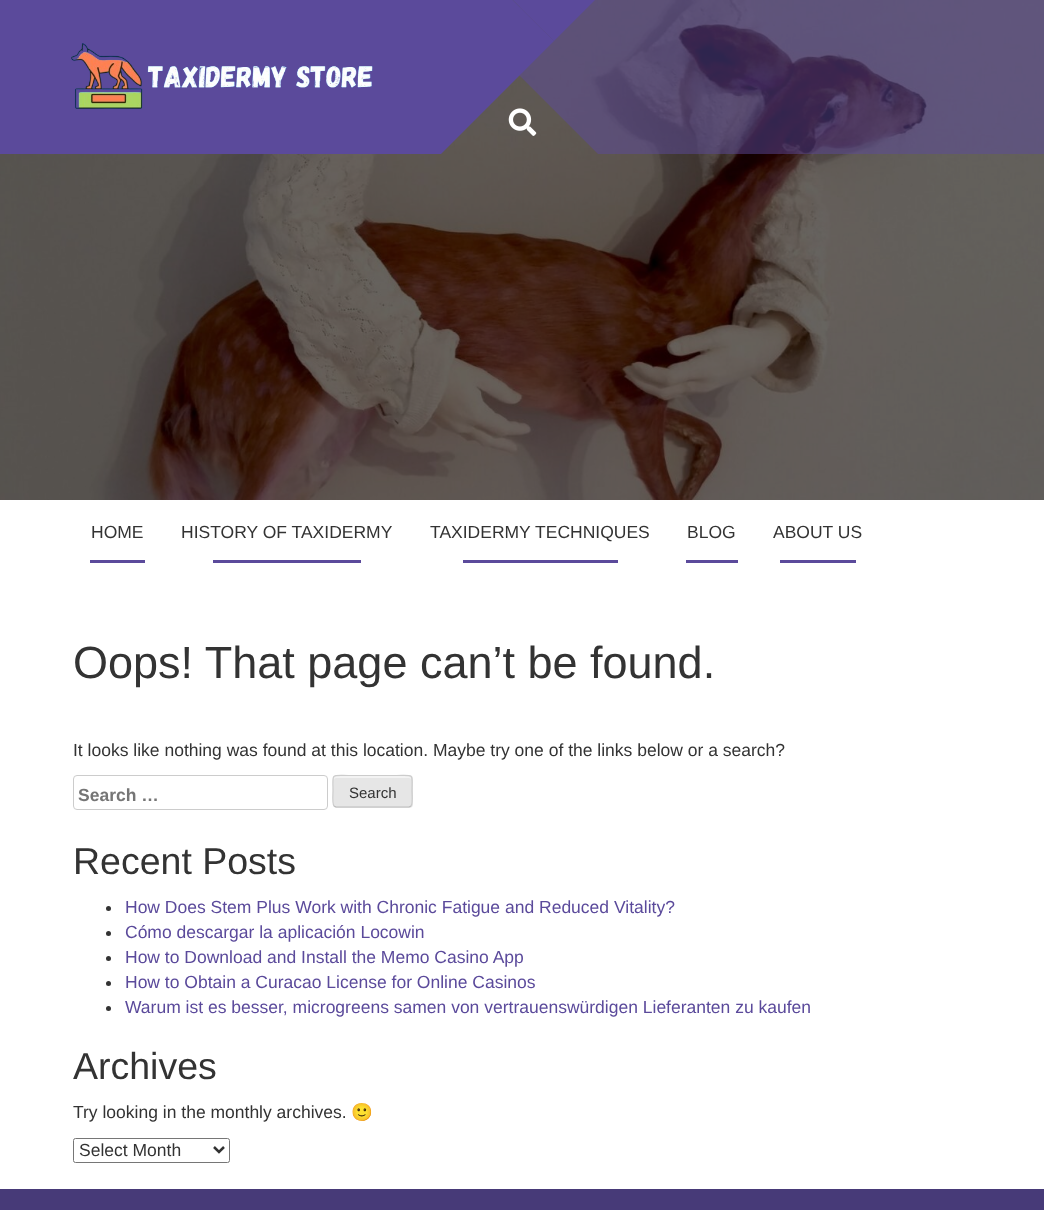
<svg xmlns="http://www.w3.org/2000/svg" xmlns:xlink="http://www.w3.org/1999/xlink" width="1044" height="1210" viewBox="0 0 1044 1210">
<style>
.cls-1{font:17.5px Liberation Sans;fill:#333333}
.cls-2{font:45px Liberation Sans;fill:#333333}
.cls-3{font:bold 17.5px Liberation Sans;fill:#757575}
.cls-4{font:15px Liberation Sans;fill:#333333}
.cls-5{font:37.5px Liberation Sans;fill:#333333}
.cls-6{font:17.5px Liberation Sans;fill:#5b4a9b}
.cls-7{font:17.5px Noto Color Emoji;fill:#333333}
</style>
<rect width="100%" height="100%" fill="#ffffff"/>
<image xlink:href="image0.png" x="0" y="0" width="1044" height="500"/>
<rect fill="#5b4a9b" x="0" y="0" width="441" height="154"/>
<image xlink:href="image1.png" x="71" y="43" width="302" height="66"/>
<path fill="#5b4a9b" fill-opacity="0.5" d="M598-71V154L485 41Z"/>
<path fill="#5b4a9b" d="M441-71H666L554 41Z"/>
<path fill="#5b4a9b" d="M441 154V-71L554 41Z"/>
<rect fill="#5b4a9b" fill-opacity="0.5" x="598" y="0" width="375" height="154"/>
<rect fill="#5b4a9b" fill-opacity="0.5" x="973" y="0" width="71" height="154"/>
<image xlink:href="image2.png" x="508" y="108" width="29" height="28"/>
<rect fill="#5b4a9b" x="90" y="560" width="55" height="3"/>
<rect fill="#5b4a9b" x="213" y="560" width="148" height="3"/>
<rect fill="#5b4a9b" x="463" y="560" width="155" height="3"/>
<rect fill="#5b4a9b" x="686" y="560" width="52" height="3"/>
<rect fill="#5b4a9b" x="780" y="560" width="76" height="3"/>
<rect fill="none" stroke="#cccccc" x="73.5" y="775.5" width="254" height="34" rx="3.5"/>
<rect fill="#e6e6e6" x="333" y="775" width="80" height="33" rx="4"/>
<path fill="#f3f3f3" d="M336 778H409C410 778 411 779 411 780C411 773 402 776 396 776H348C343 776 334 773 334 780C334 779 335 778 336 778Z"/>
<path fill="none" stroke="#bbbbbb" stroke-width="1.2" d="M411 806L409 807H336L334 806"/>
<path fill="none" stroke="#cccccc" stroke-width="1.2" d="M334 806C332 804 333 794 333 791C333 773 330 775.5 348.5 775.5H396.5C415 775.5 412 773 412 791C412 794 413 804 411 806"/>
<circle fill="#333333" cx="108.5" cy="908.5" r="2.5"/>
<circle fill="#333333" cx="108.5" cy="933.5" r="2.5"/>
<circle fill="#333333" cx="108.5" cy="958.5" r="2.5"/>
<circle fill="#333333" cx="108.5" cy="983.5" r="2.5"/>
<circle fill="#333333" cx="108.5" cy="1008.5" r="2.5"/>
<rect fill="none" stroke="#767676" x="73.5" y="1138.5" width="156" height="24" rx="2"/>
<path fill="none" stroke="#333333" stroke-width="2.5" d="M214 1147L219 1152L224 1147"/>
<rect fill="#473a78" x="0" y="1189" width="1044" height="21"/>
<text class="cls-1" x="91" y="538">HOME</text>
<text class="cls-1" x="181" y="538">HISTORY OF TAXIDERMY</text>
<text class="cls-1" x="430" y="538">TAXIDERMY TECHNIQUES</text>
<text class="cls-1" x="687" y="538">BLOG</text>
<text class="cls-1" x="773" y="538">ABOUT US</text>
<text class="cls-2" x="73" y="678">Oops! That page can’t be found.</text>
<text class="cls-1" x="73" y="756">It looks like nothing was found at this location. Maybe try one of the links below or a search?</text>
<text class="cls-3" x="78" y="801">Search …</text>
<text class="cls-4" x="349" y="798">Search</text>
<text class="cls-5" x="73" y="874">Recent Posts</text>
<text class="cls-6"><tspan x="125" y="913">How Does Stem Plus Work with Chronic Fatigue and Reduced Vitality?</tspan><tspan x="125" y="938">Cómo descargar la aplicación Locowin</tspan><tspan x="125" y="963">How to Download and Install the Memo Casino App</tspan><tspan x="125" y="988">How to Obtain a Curacao License for Online Casinos</tspan><tspan x="125" y="1013">Warum ist es besser, microgreens samen von vertrauenswürdigen Lieferanten zu kaufen</tspan></text>
<text class="cls-5" x="73" y="1079">Archives</text>
<text class="cls-1" x="73" y="1118">Try looking in the monthly archives.</text>
<text class="cls-7" x="351" y="1118">🙂</text>
<text class="cls-1" x="79" y="1156">Select Month</text>
</svg>
